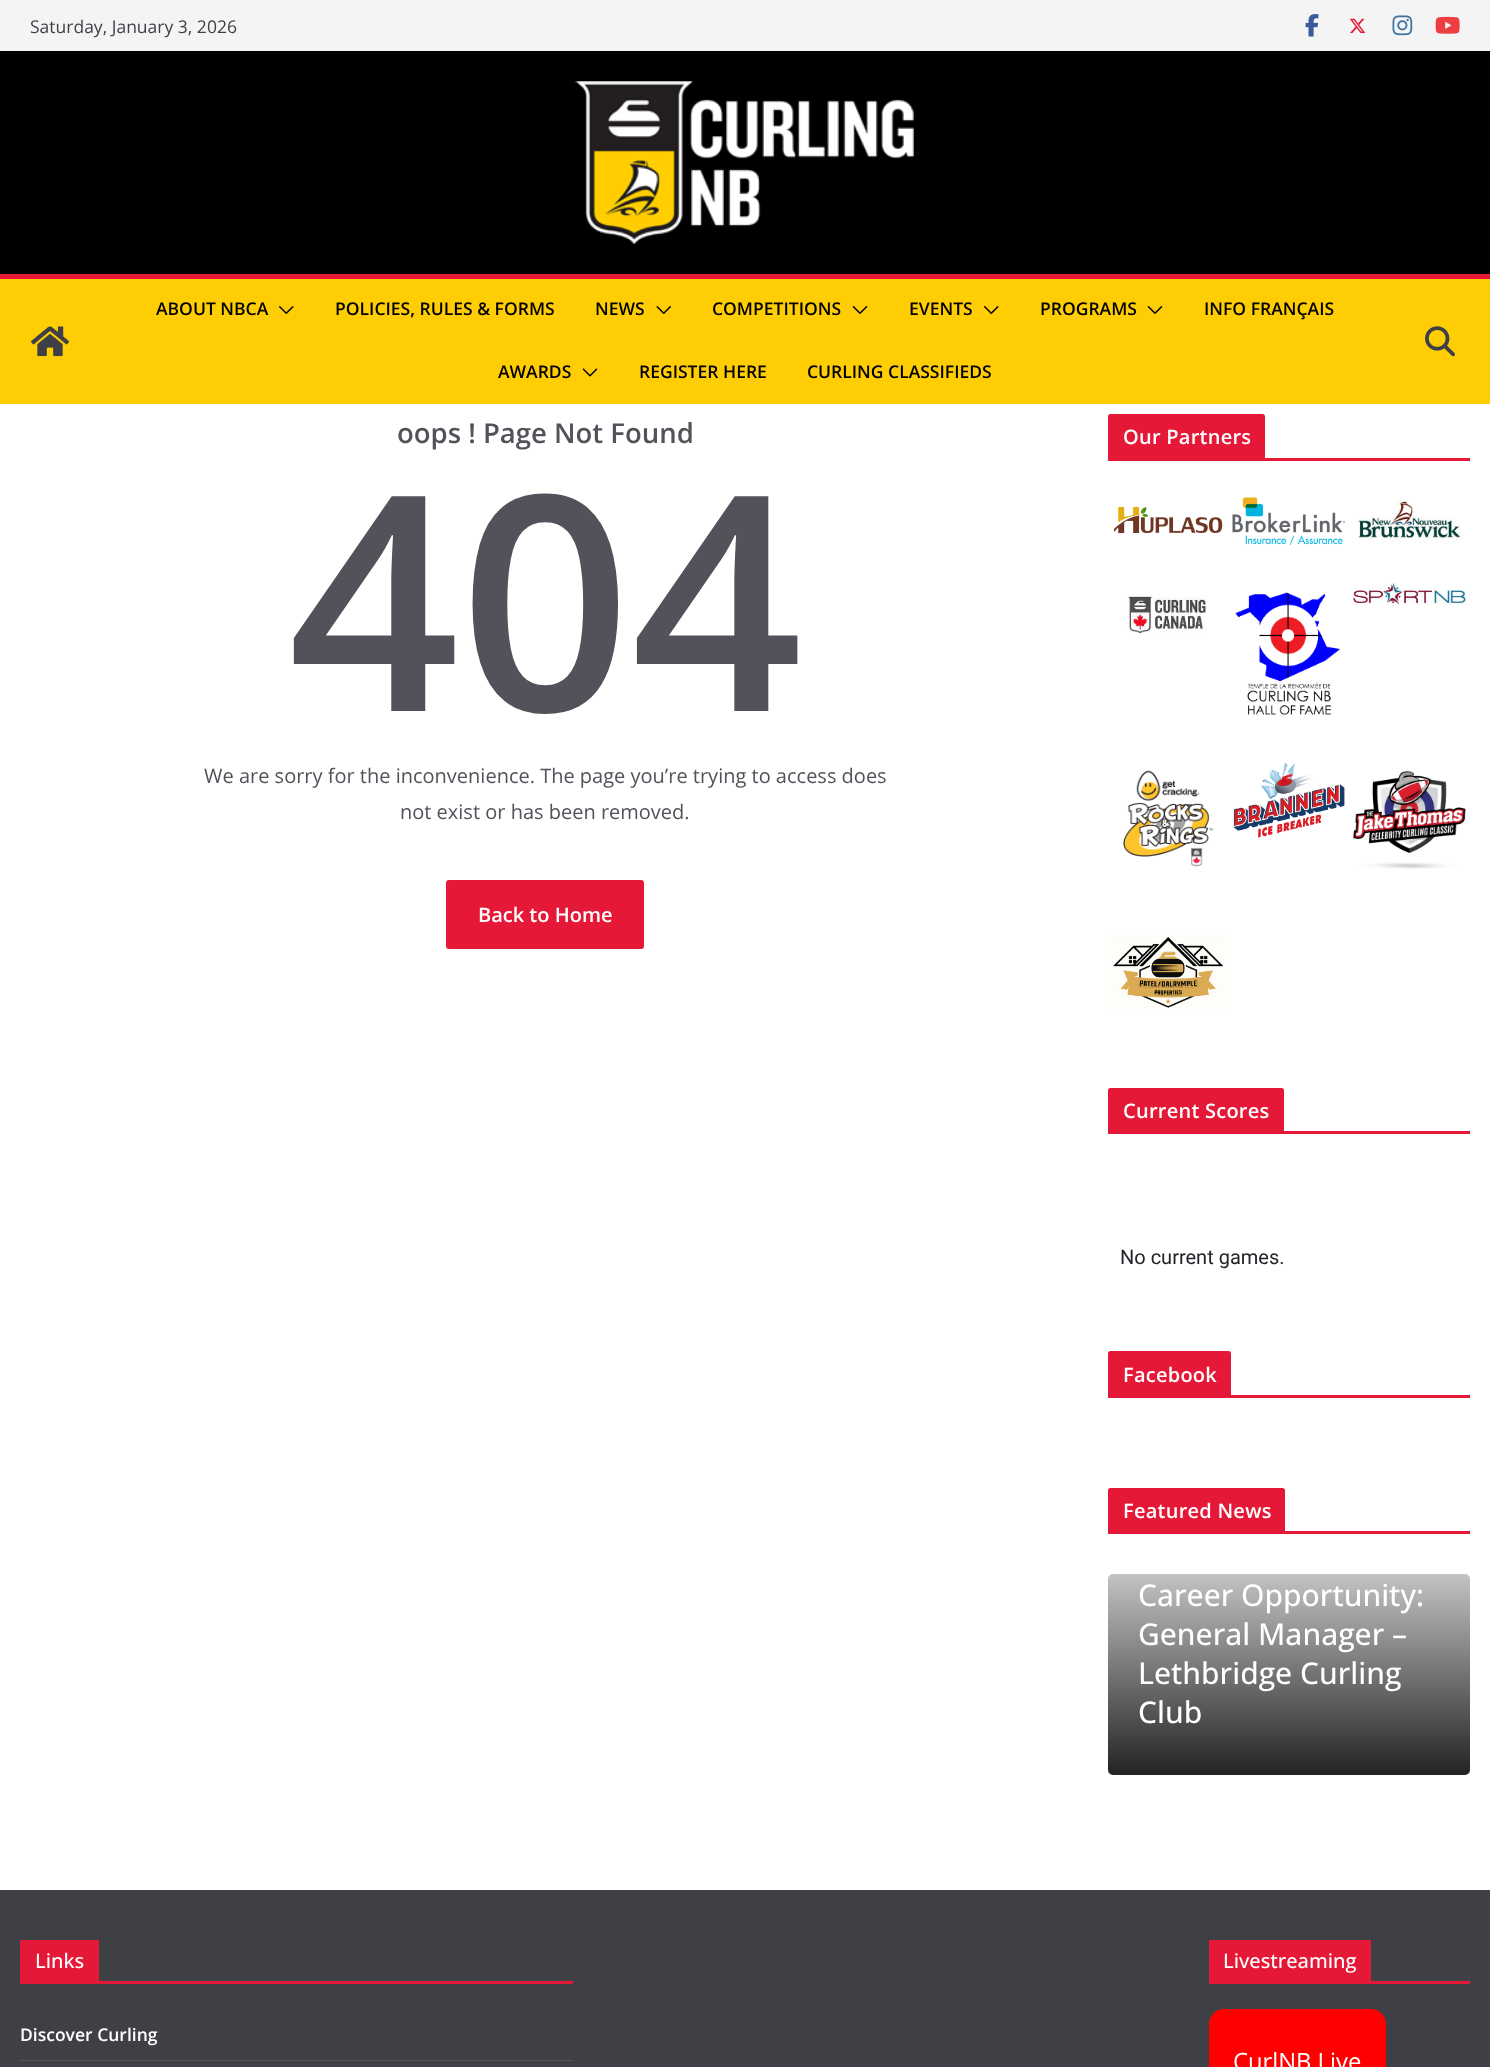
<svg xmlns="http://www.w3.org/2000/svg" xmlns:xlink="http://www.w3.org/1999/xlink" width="1490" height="2067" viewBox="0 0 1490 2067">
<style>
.cls-1{font:17.5px Open Sans;fill:#3f3f46}
.cls-2{font:600 17.5px Open Sans;fill:#000000}
.cls-3{font:600 27.5px Open Sans;fill:#52525b}
.cls-4{font:600 300px Open Sans;fill:#52525b}
.cls-5{font:20px Open Sans;fill:#52525b}
.cls-6{font:600 20px Open Sans;fill:#ffffff}
.cls-7{font:600 20px Open Sans;letter-spacing:0.25px;fill:#ffffff}
.cls-8{font:20px Roboto;fill:#212529}
.cls-9{font:500 30px Open Sans;fill:#ffffff}
.cls-10{font:500 20px Open Sans;fill:#ffffff}
.cls-11{font:600 17.5px Open Sans;fill:#ffffff}
.cls-12{font:23.75px Open Sans;fill:#ffffff}
</style>
<defs>
<linearGradient id="g1" gradientUnits="userSpaceOnUse" x1="1289" y1="1498" x2="1289" y2="1775"><stop offset="0" stop-color="#ffffff"/><stop offset="1" stop-color="#232323"/></linearGradient>
</defs>
<rect width="100%" height="100%" fill="#f4f4f5"/>
<image xlink:href="image0.png" x="1305" y="14" width="14" height="23"/>
<image xlink:href="image1.png" x="1349" y="18" width="17" height="16"/>
<image xlink:href="image2.png" x="1392" y="15" width="21" height="21"/>
<image xlink:href="image3.png" x="1435" y="16" width="25" height="18"/>
<rect fill="#000000" x="0" y="51" width="1490" height="223"/>
<image xlink:href="image4.png" x="575" y="81" width="339" height="163"/>
<rect fill="#ffcd04" x="0" y="279" width="1490" height="125"/>
<rect fill="#e51837" x="0" y="274" width="1490" height="5"/>
<image xlink:href="image5.png" x="31" y="326" width="38" height="31"/>
<image xlink:href="image6.png" x="279" y="306" width="15" height="8"/>
<image xlink:href="image7.png" x="656" y="306" width="15" height="8"/>
<image xlink:href="image8.png" x="852" y="306" width="16" height="8"/>
<image xlink:href="image6.png" x="984" y="306" width="15" height="8"/>
<image xlink:href="image8.png" x="1147" y="306" width="16" height="8"/>
<image xlink:href="image9.png" x="582" y="368" width="16" height="9"/>
<image xlink:href="image10.png" x="1425" y="326" width="30" height="31"/>
<rect fill="#ffffff" x="0" y="404" width="1490" height="1486"/>
<rect fill="#e51837" stroke="#e51837" x="446.5" y="880.5" width="197" height="68" rx="2"/>
<rect fill="#e51837" x="1108" y="458" width="362" height="3"/>
<path fill="#e51837" d="M1110.5 414H1262.5C1264 414 1265 415 1265 416.5V458H1108V416.5C1108 415 1109 414 1110.5 414Z"/>
<image xlink:href="image11.png" x="1113" y="507" width="110" height="27"/>
<image xlink:href="image12.png" x="1232" y="497" width="113" height="48"/>
<image xlink:href="image13.png" x="1358" y="498" width="104" height="43"/>
<image xlink:href="image14.png" x="1127" y="595" width="80" height="40"/>
<image xlink:href="image15.png" x="1235" y="592" width="106" height="123"/>
<image xlink:href="image16.png" x="1352" y="582" width="114" height="23"/>
<image xlink:href="image17.png" x="1123" y="770" width="91" height="97"/>
<image xlink:href="image18.png" x="1232" y="762" width="113" height="76"/>
<image xlink:href="image19.png" x="1353" y="771" width="113" height="98"/>
<image xlink:href="image20.png" x="1111" y="935" width="114" height="74"/>
<rect fill="#e51837" x="1108" y="1131" width="362" height="3"/>
<path fill="#e51837" d="M1110.5 1088H1281.5C1283 1088 1284 1089 1284 1090.5V1131H1108V1090.5C1108 1089 1109 1088 1110.5 1088Z"/>
<rect fill="#e51837" x="1108" y="1395" width="362" height="3"/>
<path fill="#e51837" d="M1110.5 1351H1228.5C1230 1351 1231 1352 1231 1353.5V1395H1108V1353.5C1108 1352 1109 1351 1110.5 1351Z"/>
<rect fill="#e51837" x="1108" y="1531" width="362" height="3"/>
<path fill="#e51837" d="M1110.5 1488H1282.5C1284 1488 1285 1489 1285 1490.5V1531H1108V1490.5C1108 1489 1109 1488 1110.5 1488Z"/>
<rect fill="url(#g1)" x="1108" y="1574" width="362" height="201" rx="5"/>
<rect fill="#3f3f46" x="0" y="1890" width="1490" height="177"/>
<rect fill="#e51837" x="20" y="1981" width="553" height="3"/>
<rect fill="#e51837" x="20" y="1940" width="79" height="41"/>
<rect fill="#52525b" x="20" y="2060" width="553" height="1"/>
<rect fill="#e51837" x="1209" y="1981" width="261" height="3"/>
<rect fill="#e51837" x="1209" y="1940" width="162" height="41"/>
<rect fill="#ff0000" x="1209" y="2009" width="177" height="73" rx="15"/>
<text class="cls-1" x="30" y="33">Saturday, January 3, 2026</text>
<text class="cls-2" x="156" y="315">ABOUT NBCA</text>
<text class="cls-2" x="335" y="315">POLICIES, RULES &amp; FORMS</text>
<text class="cls-2" x="595" y="315">NEWS</text>
<text class="cls-2" x="712" y="315">COMPETITIONS</text>
<text class="cls-2" x="909" y="315">EVENTS</text>
<text class="cls-2" x="1040" y="315">PROGRAMS</text>
<text class="cls-2" x="1204" y="315">INFO FRANÇAIS</text>
<text class="cls-2" x="498" y="378">AWARDS</text>
<text class="cls-2" x="639" y="378">REGISTER HERE</text>
<text class="cls-2" x="807" y="378">CURLING CLASSIFIEDS</text>
<text class="cls-3" x="397" y="443">oops ! Page Not Found</text>
<text class="cls-4" x="288" y="711">404</text>
<text class="cls-5" x="204" y="783">We are sorry for the inconvenience. The page you’re trying to access does</text>
<text class="cls-5" x="400" y="819">not exist or has been removed.</text>
<text class="cls-6" x="478" y="922">Back to Home</text>
<text class="cls-7" x="1123" y="444">Our Partners</text>
<text class="cls-7" x="1123" y="1118">Current Scores</text>
<text class="cls-8" x="1120" y="1264">No current games.</text>
<text class="cls-7" x="1123" y="1382">Facebook</text>
<text class="cls-7" x="1123" y="1518">Featured News</text>
<text class="cls-9"><tspan x="1138" y="1606">Career Opportunity:</tspan><tspan x="1138" y="1645">General Manager –</tspan><tspan x="1138" y="1684">Lethbridge Curling</tspan><tspan x="1138" y="1723">Club</tspan></text>
<text class="cls-10" x="35" y="1968">Links</text>
<text class="cls-11" x="20" y="2041">Discover Curling</text>
<text class="cls-10" x="1223" y="1968">Livestreaming</text>
<text class="cls-12" x="1233" y="2070">CurlNB Live</text>
</svg>
